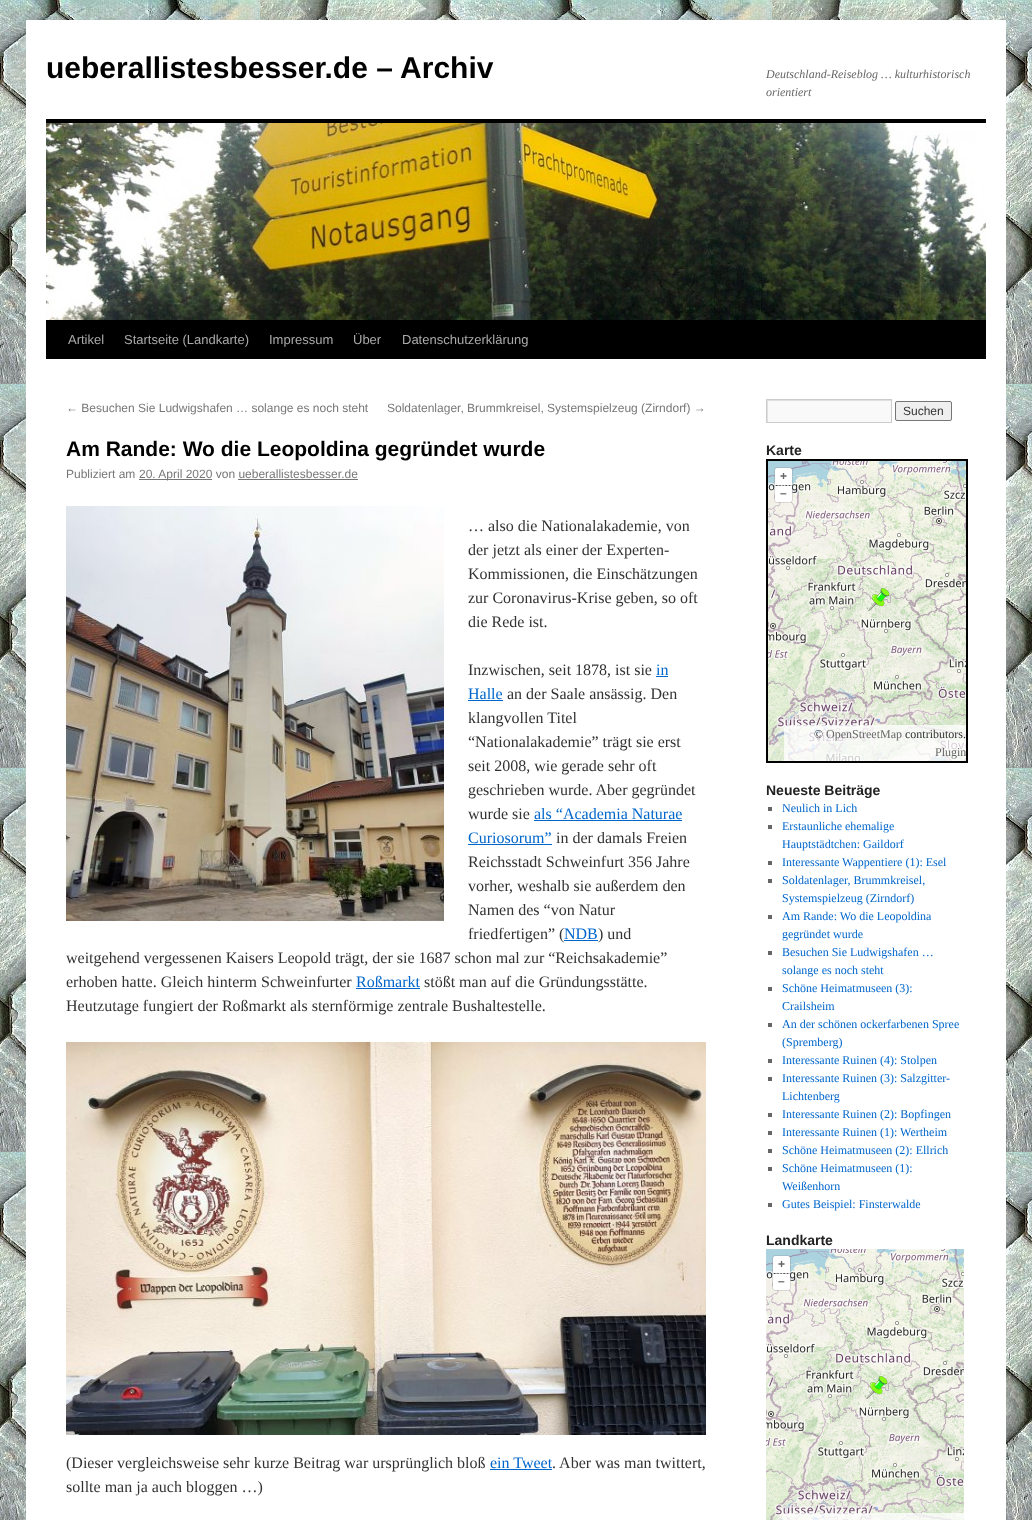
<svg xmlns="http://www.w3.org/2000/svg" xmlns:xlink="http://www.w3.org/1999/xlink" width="1032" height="1520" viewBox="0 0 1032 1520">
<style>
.cls-1{font:bold 30px Liberation Sans;fill:#000000}
.cls-2{font:italic 12px Liberation Serif;fill:#666666}
.cls-3{font:13px Liberation Sans;fill:#aaaaaa}
.cls-4{font:12px Liberation Sans;fill:#777777}
.cls-5{font:bold 21px Liberation Sans;fill:#000000}
.cls-6{font:16px Liberation Serif;fill:#333333}
.cls-7{font:16px Liberation Serif;fill:#0066cc}
.cls-8{font:12px Liberation Sans;fill:#333333}
.cls-9{font:bold 14px Liberation Sans;fill:#222222}
.cls-10{font:bold 12px Liberation Sans;fill:#666666}
.cls-11{font:12px Liberation Serif;fill:#333333}
.cls-12{font:12px Liberation Serif;fill:#666666}
.cls-13{font:12px Liberation Serif;fill:#0066cc}
</style>
<defs>
<clipPath id="clip1"><rect x="767" y="400" width="124" height="22"/></clipPath>
</defs>
<rect width="100%" height="100%" fill="#ffffff"/>
<image xlink:href="image0.png" x="0" y="0" width="1032" height="1520"/>
<rect fill="#ffffff" x="26" y="20" width="980" height="1500"/>
<rect fill="#000000" x="46" y="119" width="940" height="4"/>
<rect fill="#000000" x="46" y="320" width="940" height="39"/>
<image xlink:href="image1.png" x="46" y="123" width="940" height="197"/>
<rect fill="#777777" x="139" y="479" width="73" height="1"/>
<rect fill="#777777" x="238" y="479" width="120" height="1"/>
<image xlink:href="image2.png" x="66" y="506" width="378" height="415"/>
<rect fill="#0066cc" x="656" y="676" width="12" height="1"/>
<rect fill="#0066cc" x="468" y="700" width="35" height="1"/>
<rect fill="#0066cc" x="534" y="820" width="148" height="1"/>
<rect fill="#0066cc" x="468" y="844" width="84" height="1"/>
<rect fill="#0066cc" x="564" y="940" width="34" height="1"/>
<rect fill="#0066cc" x="356" y="988" width="64" height="1"/>
<image xlink:href="image3.png" x="66" y="1042" width="640" height="393"/>
<rect fill="#0066cc" x="490" y="1469" width="62" height="1"/>
<rect fill="#f9f9f9" x="768" y="401" width="123" height="21"/>
<g clip-path="url(#clip1)">
<path fill="#e0e0e0" fill-rule="evenodd" d="M668 301H990V521H668ZM768 401H892V423H768Z"/>
</g>
<rect fill="none" stroke="#cccccc" x="766.5" y="399.5" width="125" height="23"/>
<rect fill="#efefef" stroke="#767676" x="895.5" y="401.5" width="56" height="19" rx="1.5"/>
<rect fill="none" stroke="#000000" stroke-width="2" x="767" y="460" width="200" height="302"/>
<image xlink:href="image4.png" x="768" y="461" width="198" height="300"/>
<rect fill="#808080" fill-opacity="0.25" x="774" y="467" width="19" height="36" rx="4"/>
<path fill="#ffffff" d="M777 468H790C791 468 792 469 792 470V485H775V470C775 469 776 468 777 468Z"/>
<path fill="#ffffff" d="M775 486H792V500C792 501 791 502 790 502H777C776 502 775 501 775 500Z"/>
<path fill="#ffffff" fill-opacity="0.75" d="M788 725H966V761H784V729C784 727 786 725 788 725Z"/>
<rect fill="#666666" x="768" y="807" width="4" height="4"/>
<rect fill="#666666" x="768" y="825" width="4" height="4"/>
<rect fill="#666666" x="768" y="861" width="4" height="4"/>
<rect fill="#666666" x="768" y="879" width="4" height="4"/>
<rect fill="#666666" x="768" y="915" width="4" height="4"/>
<rect fill="#666666" x="768" y="951" width="4" height="4"/>
<rect fill="#666666" x="768" y="987" width="4" height="4"/>
<rect fill="#666666" x="768" y="1023" width="4" height="4"/>
<rect fill="#666666" x="768" y="1059" width="4" height="4"/>
<rect fill="#666666" x="768" y="1077" width="4" height="4"/>
<rect fill="#666666" x="768" y="1113" width="4" height="4"/>
<rect fill="#666666" x="768" y="1131" width="4" height="4"/>
<rect fill="#666666" x="768" y="1149" width="4" height="4"/>
<rect fill="#666666" x="768" y="1167" width="4" height="4"/>
<rect fill="#666666" x="768" y="1203" width="4" height="4"/>
<image xlink:href="image5.png" x="766" y="1249" width="198" height="271"/>
<rect fill="#808080" fill-opacity="0.25" x="772" y="1255" width="19" height="36" rx="4"/>
<path fill="#ffffff" d="M775 1256H788C789 1256 790 1257 790 1258V1273H773V1258C773 1257 774 1256 775 1256Z"/>
<path fill="#ffffff" d="M773 1274H790V1288C790 1289 789 1290 788 1290H775C774 1290 773 1289 773 1288Z"/>
<path fill="#ffffff" fill-opacity="0.75" d="M786 1513H964V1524H782V1517C782 1515 784 1513 786 1513Z"/>
<text class="cls-1" x="46" y="78">ueberallistesbesser.de – Archiv</text>
<text class="cls-2"><tspan x="766" y="78">Deutschland-Reiseblog … kulturhistorisch</tspan><tspan x="766" y="96">orientiert</tspan></text>
<text class="cls-3" x="68" y="344">Artikel</text>
<text class="cls-3" x="124" y="344">Startseite (Landkarte)</text>
<text class="cls-3" x="269" y="344">Impressum</text>
<text class="cls-3" x="353" y="344">Über</text>
<text class="cls-3" x="402" y="344">Datenschutzerklärung</text>
<text class="cls-4" x="66" y="412">← Besuchen Sie Ludwigshafen … solange es noch steht</text>
<text class="cls-4" x="387" y="412">Soldatenlager, Brummkreisel, Systemspielzeug (Zirndorf) →</text>
<text class="cls-5" x="66" y="456">Am Rande: Wo die Leopoldina gegründet wurde</text>
<text class="cls-4" x="66" y="478">Publiziert am</text>
<text class="cls-4" x="139" y="478">20. April 2020 von ueberallistesbesser.de</text>
<text class="cls-6"><tspan x="468" y="531">… also die Nationalakademie, von</tspan><tspan x="468" y="555">der jetzt als einer der Experten-</tspan><tspan x="468" y="579">Kommissionen, die Einschätzungen</tspan><tspan x="468" y="603">zur Coronavirus-Krise geben, so oft</tspan><tspan x="468" y="627">die Rede ist.</tspan></text>
<text class="cls-6" x="468" y="675">Inzwischen, seit 1878, ist sie</text>
<text class="cls-7" x="656" y="675">in</text>
<text class="cls-7" x="468" y="699">Halle</text>
<text class="cls-6" x="507" y="699">an der Saale ansässig. Den</text>
<text class="cls-6"><tspan x="468" y="723">klangvollen Titel</tspan><tspan x="468" y="747">“Nationalakademie” trägt sie erst</tspan><tspan x="468" y="771">seit 2008, wie gerade sehr oft</tspan><tspan x="468" y="795">geschrieben wurde. Aber gegründet</tspan><tspan x="468" y="819">wurde sie</tspan></text>
<text class="cls-7" x="534" y="819">als “Academia Naturae</text>
<text class="cls-7" x="468" y="843">Curiosorum”</text>
<text class="cls-6" x="556" y="843">in der damals Freien</text>
<text class="cls-6"><tspan x="468" y="867">Reichsstadt Schweinfurt 356 Jahre</tspan><tspan x="468" y="891">vorher, weshalb sie außerdem den</tspan><tspan x="468" y="915">Namen des “von Natur</tspan><tspan x="468" y="939">friedfertigen” (</tspan></text>
<text class="cls-7" x="564" y="939">NDB</text>
<text class="cls-6" x="598" y="939">) und</text>
<text class="cls-6"><tspan x="66" y="963">weitgehend vergessenen Kaisers Leopold trägt, der sie 1687 schon mal zur “Reichsakademie”</tspan><tspan x="66" y="987">erhoben hatte. Gleich hinterm Schweinfurter</tspan></text>
<text class="cls-7" x="356" y="987">Roßmarkt</text>
<text class="cls-6" x="424" y="987">stößt man auf die Gründungsstätte.</text>
<text class="cls-6" x="66" y="1011">Heutzutage fungiert der Roßmarkt als sternförmige zentrale Bushaltestelle.</text>
<text class="cls-6" x="66" y="1468">(Dieser vergleichsweise sehr kurze Beitrag war ursprünglich bloß</text>
<text class="cls-7" x="490" y="1468">ein Tweet</text>
<text class="cls-6" x="552" y="1468">. Aber was man twittert,</text>
<text class="cls-6" x="66" y="1492">sollte man ja auch bloggen …)</text>
<text class="cls-8" x="903" y="415">Suchen</text>
<text class="cls-9" x="766" y="455">Karte</text>
<text class="cls-10"><tspan x="780" y="480">+</tspan><tspan x="780" y="497">–</tspan></text>
<text class="cls-11" x="814" y="738">©</text>
<text class="cls-12" x="826" y="738">OpenStreetMap</text>
<text class="cls-11" x="905" y="738">contributors.</text>
<text class="cls-12" x="935" y="756">Plugin</text>
<text class="cls-9" x="766" y="795">Neueste Beiträge</text>
<text class="cls-13"><tspan x="782" y="812">Neulich in Lich</tspan><tspan x="782" y="830">Erstaunliche ehemalige</tspan><tspan x="782" y="848">Hauptstädtchen: Gaildorf</tspan><tspan x="782" y="866">Interessante Wappentiere (1): Esel</tspan><tspan x="782" y="884">Soldatenlager, Brummkreisel,</tspan><tspan x="782" y="902">Systemspielzeug (Zirndorf)</tspan><tspan x="782" y="920">Am Rande: Wo die Leopoldina</tspan><tspan x="782" y="938">gegründet wurde</tspan><tspan x="782" y="956">Besuchen Sie Ludwigshafen …</tspan><tspan x="782" y="974">solange es noch steht</tspan><tspan x="782" y="992">Schöne Heimatmuseen (3):</tspan><tspan x="782" y="1010">Crailsheim</tspan><tspan x="782" y="1028">An der schönen ockerfarbenen Spree</tspan><tspan x="782" y="1046">(Spremberg)</tspan><tspan x="782" y="1064">Interessante Ruinen (4): Stolpen</tspan><tspan x="782" y="1082">Interessante Ruinen (3): Salzgitter-</tspan><tspan x="782" y="1100">Lichtenberg</tspan><tspan x="782" y="1118">Interessante Ruinen (2): Bopfingen</tspan><tspan x="782" y="1136">Interessante Ruinen (1): Wertheim</tspan><tspan x="782" y="1154">Schöne Heimatmuseen (2): Ellrich</tspan><tspan x="782" y="1172">Schöne Heimatmuseen (1):</tspan><tspan x="782" y="1190">Weißenhorn</tspan><tspan x="782" y="1208">Gutes Beispiel: Finsterwalde</tspan></text>
<text class="cls-9" x="766" y="1245">Landkarte</text>
<text class="cls-10"><tspan x="778" y="1268">+</tspan><tspan x="778" y="1285">–</tspan></text>
</svg>
